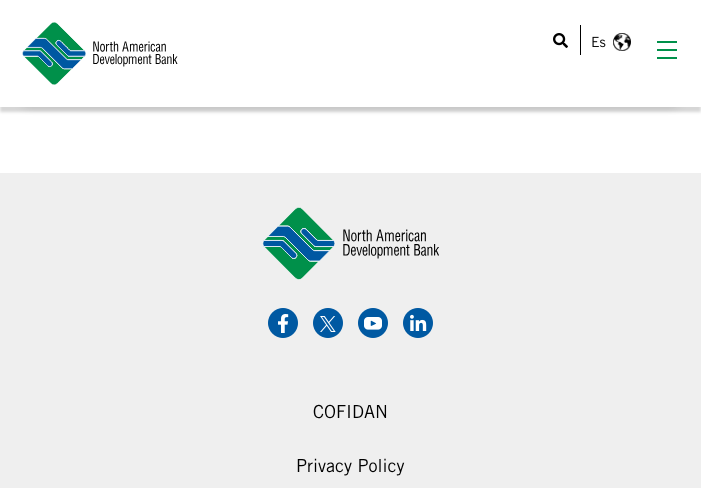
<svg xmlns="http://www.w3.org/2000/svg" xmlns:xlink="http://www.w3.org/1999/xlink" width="701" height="488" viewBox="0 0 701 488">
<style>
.cls-1{font:18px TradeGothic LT;fill:#000000}
</style>
<rect width="100%" height="100%" fill="#ffffff"/>
<rect fill="#000000" fill-opacity="0.16" filter="blur(1.5px)" x="0" y="5" width="701" height="107"/>
<rect fill="#000000" fill-opacity="0.16" filter="blur(5px)" x="20" y="-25" width="661" height="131" rx="10"/>
<rect fill="#ffffff" x="0" y="0" width="701" height="107"/>
<image xlink:href="image0.png" x="22" y="22" width="156" height="63"/>
<rect fill="#000000" x="580" y="25" width="1" height="30"/>
<image xlink:href="image1.png" x="553" y="33" width="15" height="15"/>
<image xlink:href="image2.png" x="592" y="36" width="14" height="12"/>
<image xlink:href="image3.png" x="613" y="33" width="18" height="18"/>
<rect fill="#00904a" x="657" y="49" width="20" height="2"/>
<rect fill="#00904a" x="657" y="41" width="20" height="2"/>
<rect fill="#00904a" x="657" y="57" width="20" height="2"/>
<rect fill="#efefef" x="0" y="173" width="701" height="315"/>
<image xlink:href="image4.png" x="262" y="207" width="177" height="73"/>
<image xlink:href="image5.png" x="268" y="308" width="30" height="30"/>
<image xlink:href="image6.png" x="313" y="308" width="30" height="30"/>
<image xlink:href="image7.png" x="358" y="308" width="30" height="30"/>
<image xlink:href="image8.png" x="403" y="308" width="30" height="30"/>
<text class="cls-1" x="313" y="418">COFIDAN</text>
<text class="cls-1" x="296" y="472">Privacy Policy</text>
</svg>
